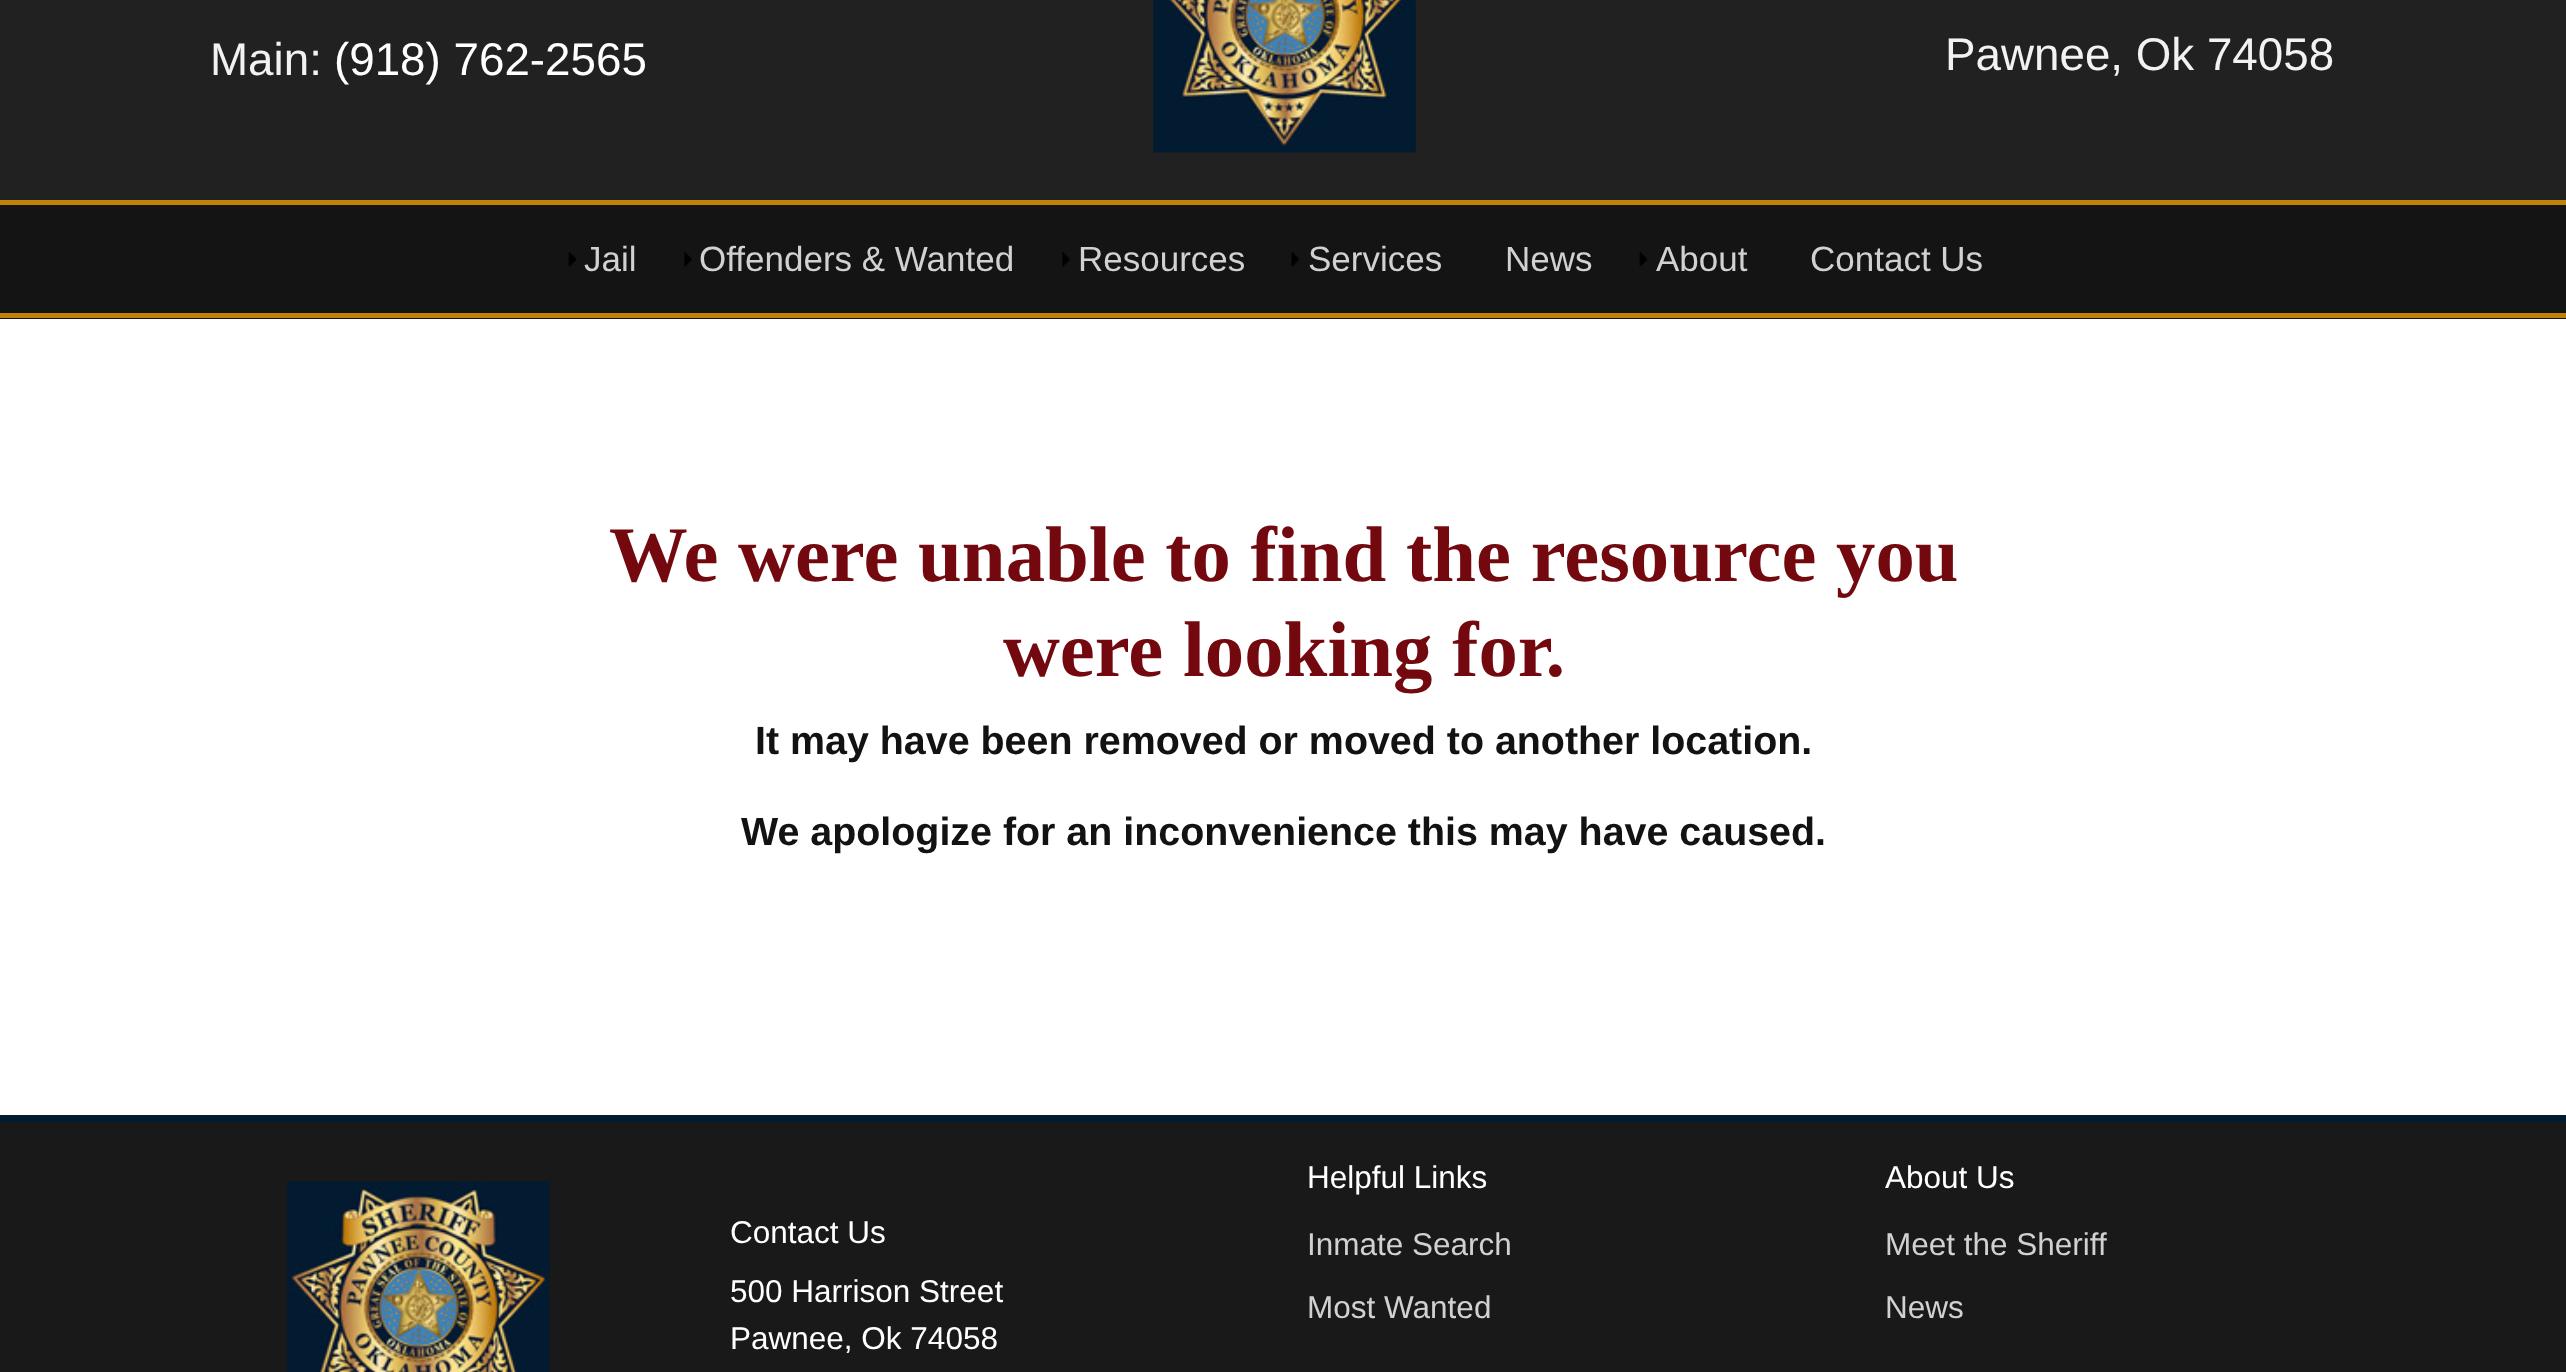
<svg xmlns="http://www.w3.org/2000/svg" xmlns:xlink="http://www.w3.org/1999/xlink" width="2566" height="1372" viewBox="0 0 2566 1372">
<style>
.cls-1{font:45.75px Liberation Sans;fill:#f2f2f2}
.cls-2{font:45.75px Liberation Sans;fill:#ffffff}
.cls-3{font:35px Liberation Sans;fill:#d1d1d1}
.cls-4{font:bold 78.75px Liberation Serif;fill:#73080f}
.cls-5{font:bold 39.4px Liberation Sans;fill:#121212}
.cls-6{font:31.5px Liberation Sans;fill:#ffffff}
.cls-7{font:31.5px Liberation Sans;fill:#d1d1d1}
</style>
<rect width="100%" height="100%" fill="#ffffff"/>
<rect fill="#212121" x="0" y="0" width="2566" height="200"/>
<image xlink:href="image0.png" x="1153" y="0" width="263" height="153"/>
<rect fill="#141414" x="0" y="205" width="2566" height="114"/>
<rect fill="#c08207" x="0" y="200" width="2566" height="5"/>
<rect fill="#c08207" x="0" y="313" width="2566" height="5"/>
<image xlink:href="image1.png" x="568" y="252" width="8" height="15"/>
<image xlink:href="image2.png" x="684" y="252" width="8" height="15"/>
<image xlink:href="image2.png" x="1062" y="252" width="8" height="15"/>
<image xlink:href="image3.png" x="1291" y="252" width="8" height="15"/>
<image xlink:href="image1.png" x="1639" y="252" width="8" height="15"/>
<rect fill="#191919" x="0" y="1122" width="2566" height="250"/>
<rect fill="#031b31" x="0" y="1115" width="2566" height="7"/>
<image xlink:href="image4.png" x="287" y="1181" width="263" height="191"/>
<text class="cls-1" x="210" y="75">Main:</text>
<text class="cls-2" x="334" y="75">(918) 762-2565</text>
<text class="cls-1" x="1945" y="70">Pawnee, Ok 74058</text>
<text class="cls-3" x="584" y="271">Jail</text>
<text class="cls-3" x="699" y="271">Offenders &amp; Wanted</text>
<text class="cls-3" x="1078" y="271">Resources</text>
<text class="cls-3" x="1308" y="271">Services</text>
<text class="cls-3" x="1505" y="271">News</text>
<text class="cls-3" x="1656" y="271">About</text>
<text class="cls-3" x="1810" y="271">Contact Us</text>
<text class="cls-4" x="609" y="581">We were unable to find the resource you</text>
<text class="cls-4" x="1003" y="676">were looking for.</text>
<text class="cls-5" x="755" y="754">It may have been removed or moved to another location.</text>
<text class="cls-5" x="741" y="845">We apologize for an inconvenience this may have caused.</text>
<text class="cls-6"><tspan x="730" y="1243">Contact Us</tspan><tspan x="730" y="1302">500 Harrison Street</tspan><tspan x="730" y="1349">Pawnee, Ok 74058</tspan></text>
<text class="cls-6" x="1307" y="1188">Helpful Links</text>
<text class="cls-7" x="1307" y="1255">Inmate Search</text>
<text class="cls-7" x="1307" y="1318">Most Wanted</text>
<text class="cls-6" x="1885" y="1188">About Us</text>
<text class="cls-7" x="1885" y="1255">Meet the Sheriff</text>
<text class="cls-7" x="1885" y="1318">News</text>
</svg>
